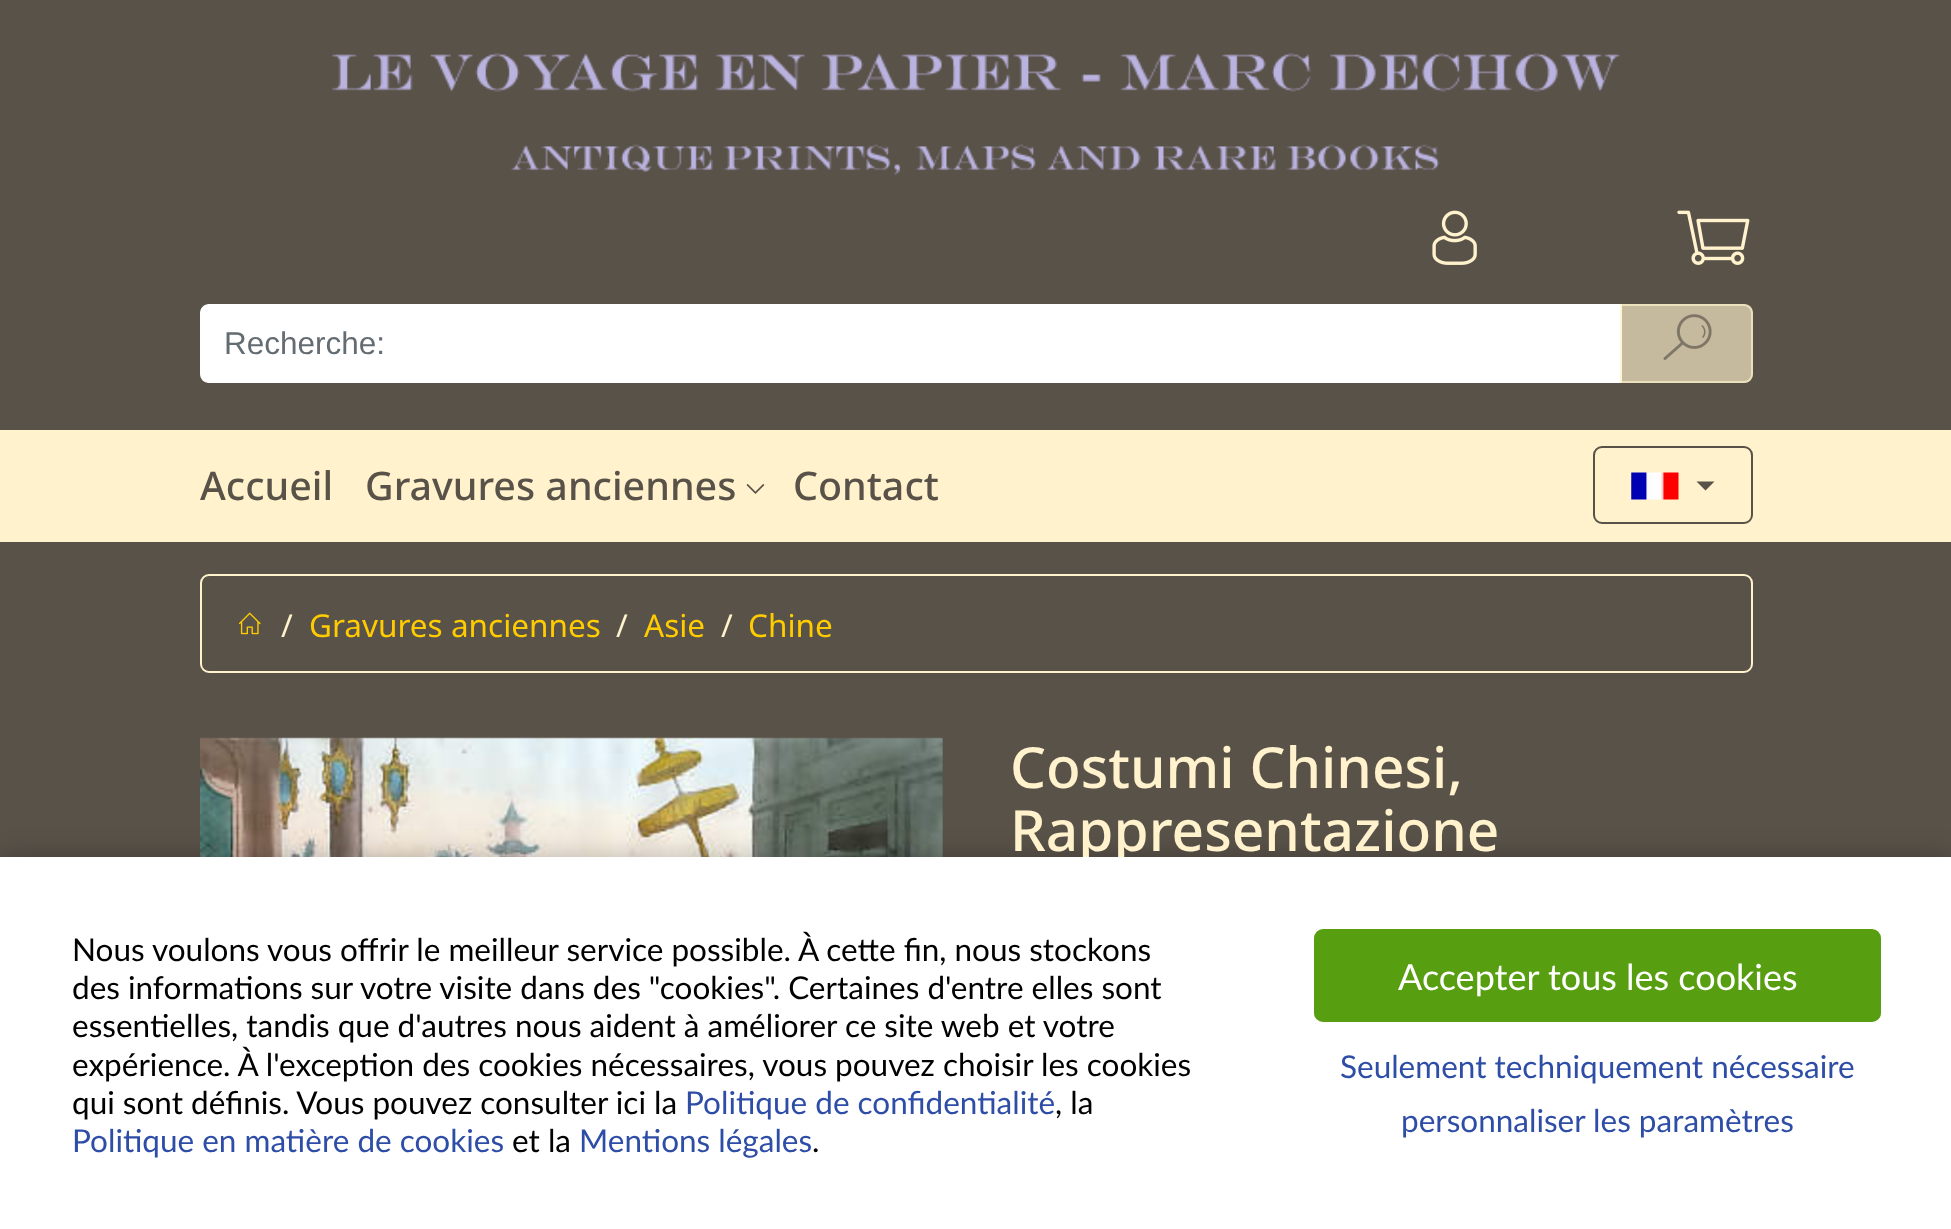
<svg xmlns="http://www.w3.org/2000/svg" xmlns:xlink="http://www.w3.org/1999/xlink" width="1951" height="1229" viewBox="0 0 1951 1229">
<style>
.cls-1{font:31.5px Liberation Sans;fill:#636c72}
.cls-2{font:500 39.4px Noto Sans;fill:#595249}
.cls-3{font:31.5px Noto Sans;fill:#fff2cc}
.cls-4{font:31.5px Noto Sans;fill:#ffcc00}
.cls-5{font:500 56.75px Noto Sans;fill:#fff2cc}
.cls-6{font:31.5px Lato;fill:#000000}
.cls-7{font:31.5px Lato;fill:#2e4da7}
.cls-8{font:36px Lato;fill:#ffffff}
</style>
<rect width="100%" height="100%" fill="#595249"/>
<image xlink:href="image0.png" x="332" y="53" width="1288" height="122"/>
<image xlink:href="image1.png" x="1432" y="210" width="45" height="55"/>
<image xlink:href="image2.png" x="1677" y="210" width="73" height="55"/>
<path fill="#ffffff" d="M209 304H1622V383H209C204 383 200 379 200 374V313C200 308 204 304 209 304Z"/>
<path fill="#fff2cc" fill-opacity="0.65" d="M1620 304H1744C1749 304 1753 308 1753 313V374C1753 379 1749 383 1744 383H1620Z"/>
<path fill="none" stroke="#fff2cc" stroke-opacity="0.65" stroke-width="2" d="M1621 305H1744C1748.5 305 1752 308.5 1752 313V374C1752 378.5 1748.5 382 1744 382H1621Z"/>
<image xlink:href="image3.png" x="1663" y="314" width="49" height="46"/>
<rect fill="#fff2cc" x="0" y="430" width="1951" height="112"/>
<image xlink:href="image4.png" x="746" y="484" width="19" height="10"/>
<rect fill="none" stroke="#595249" stroke-width="2" x="1594" y="447" width="158" height="76" rx="8"/>
<image xlink:href="image5.png" x="1631" y="472" width="48" height="28"/>
<path fill="#595249" d="M1696.5 481.5H1714.5L1705.5 490.5Z"/>
<rect fill="none" stroke="#fff2cc" stroke-width="2" x="201" y="575" width="1551" height="97" rx="8"/>
<image xlink:href="image6.png" x="238" y="612" width="23" height="23"/>
<image xlink:href="image7.png" x="200" y="737" width="743" height="120"/>
<rect fill="#000000" fill-opacity="0.25" filter="blur(13.5px)" x="0" y="857" width="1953" height="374"/>
<text class="cls-1" x="224" y="354">Recherche:</text>
<text class="cls-2" x="200" y="500">Accueil</text>
<text class="cls-2" x="365" y="500">Gravures anciennes</text>
<text class="cls-2" x="793" y="500">Contact</text>
<text class="cls-3" x="281" y="637">/</text>
<text class="cls-4" x="309" y="637">Gravures anciennes</text>
<text class="cls-3" x="616" y="637">/</text>
<text class="cls-4" x="644" y="637">Asie</text>
<text class="cls-3" x="721" y="637">/</text>
<text class="cls-4" x="748" y="637">Chine</text>
<text class="cls-5"><tspan x="1010" y="788">Costumi Chinesi,</tspan><tspan x="1010" y="851">Rappresentazione</tspan></text>
<rect fill="#ffffff" x="0" y="857" width="1951" height="372"/>
<text class="cls-6"><tspan x="72" y="961">Nous voulons vous offrir le meilleur service possible. À cette fin, nous stockons</tspan><tspan x="72" y="999">des informations sur votre visite dans des "cookies". Certaines d'entre elles sont</tspan><tspan x="72" y="1037">essentielles, tandis que d'autres nous aident à améliorer ce site web et votre</tspan><tspan x="72" y="1076">expérience. À l'exception des cookies nécessaires, vous pouvez choisir les cookies</tspan><tspan x="72" y="1114">qui sont définis. Vous pouvez consulter ici la</tspan></text>
<text class="cls-7" x="685" y="1114">Politique de confidentialité</text>
<text class="cls-6" x="1055" y="1114">, la</text>
<text class="cls-7" x="72" y="1152">Politique en matière de cookies</text>
<text class="cls-6" x="512" y="1152">et la</text>
<text class="cls-7" x="579" y="1152">Mentions légales</text>
<text class="cls-6" x="812" y="1152">.</text>
<rect fill="#589e11" stroke="#589e11" stroke-width="2" x="1315" y="930" width="565" height="91" rx="8"/>
<text class="cls-8" x="1398" y="990">Accepter tous les cookies</text>
<text class="cls-7" x="1340" y="1078">Seulement techniquement nécessaire</text>
<text class="cls-7" x="1401" y="1132">personnaliser les paramètres</text>
</svg>
